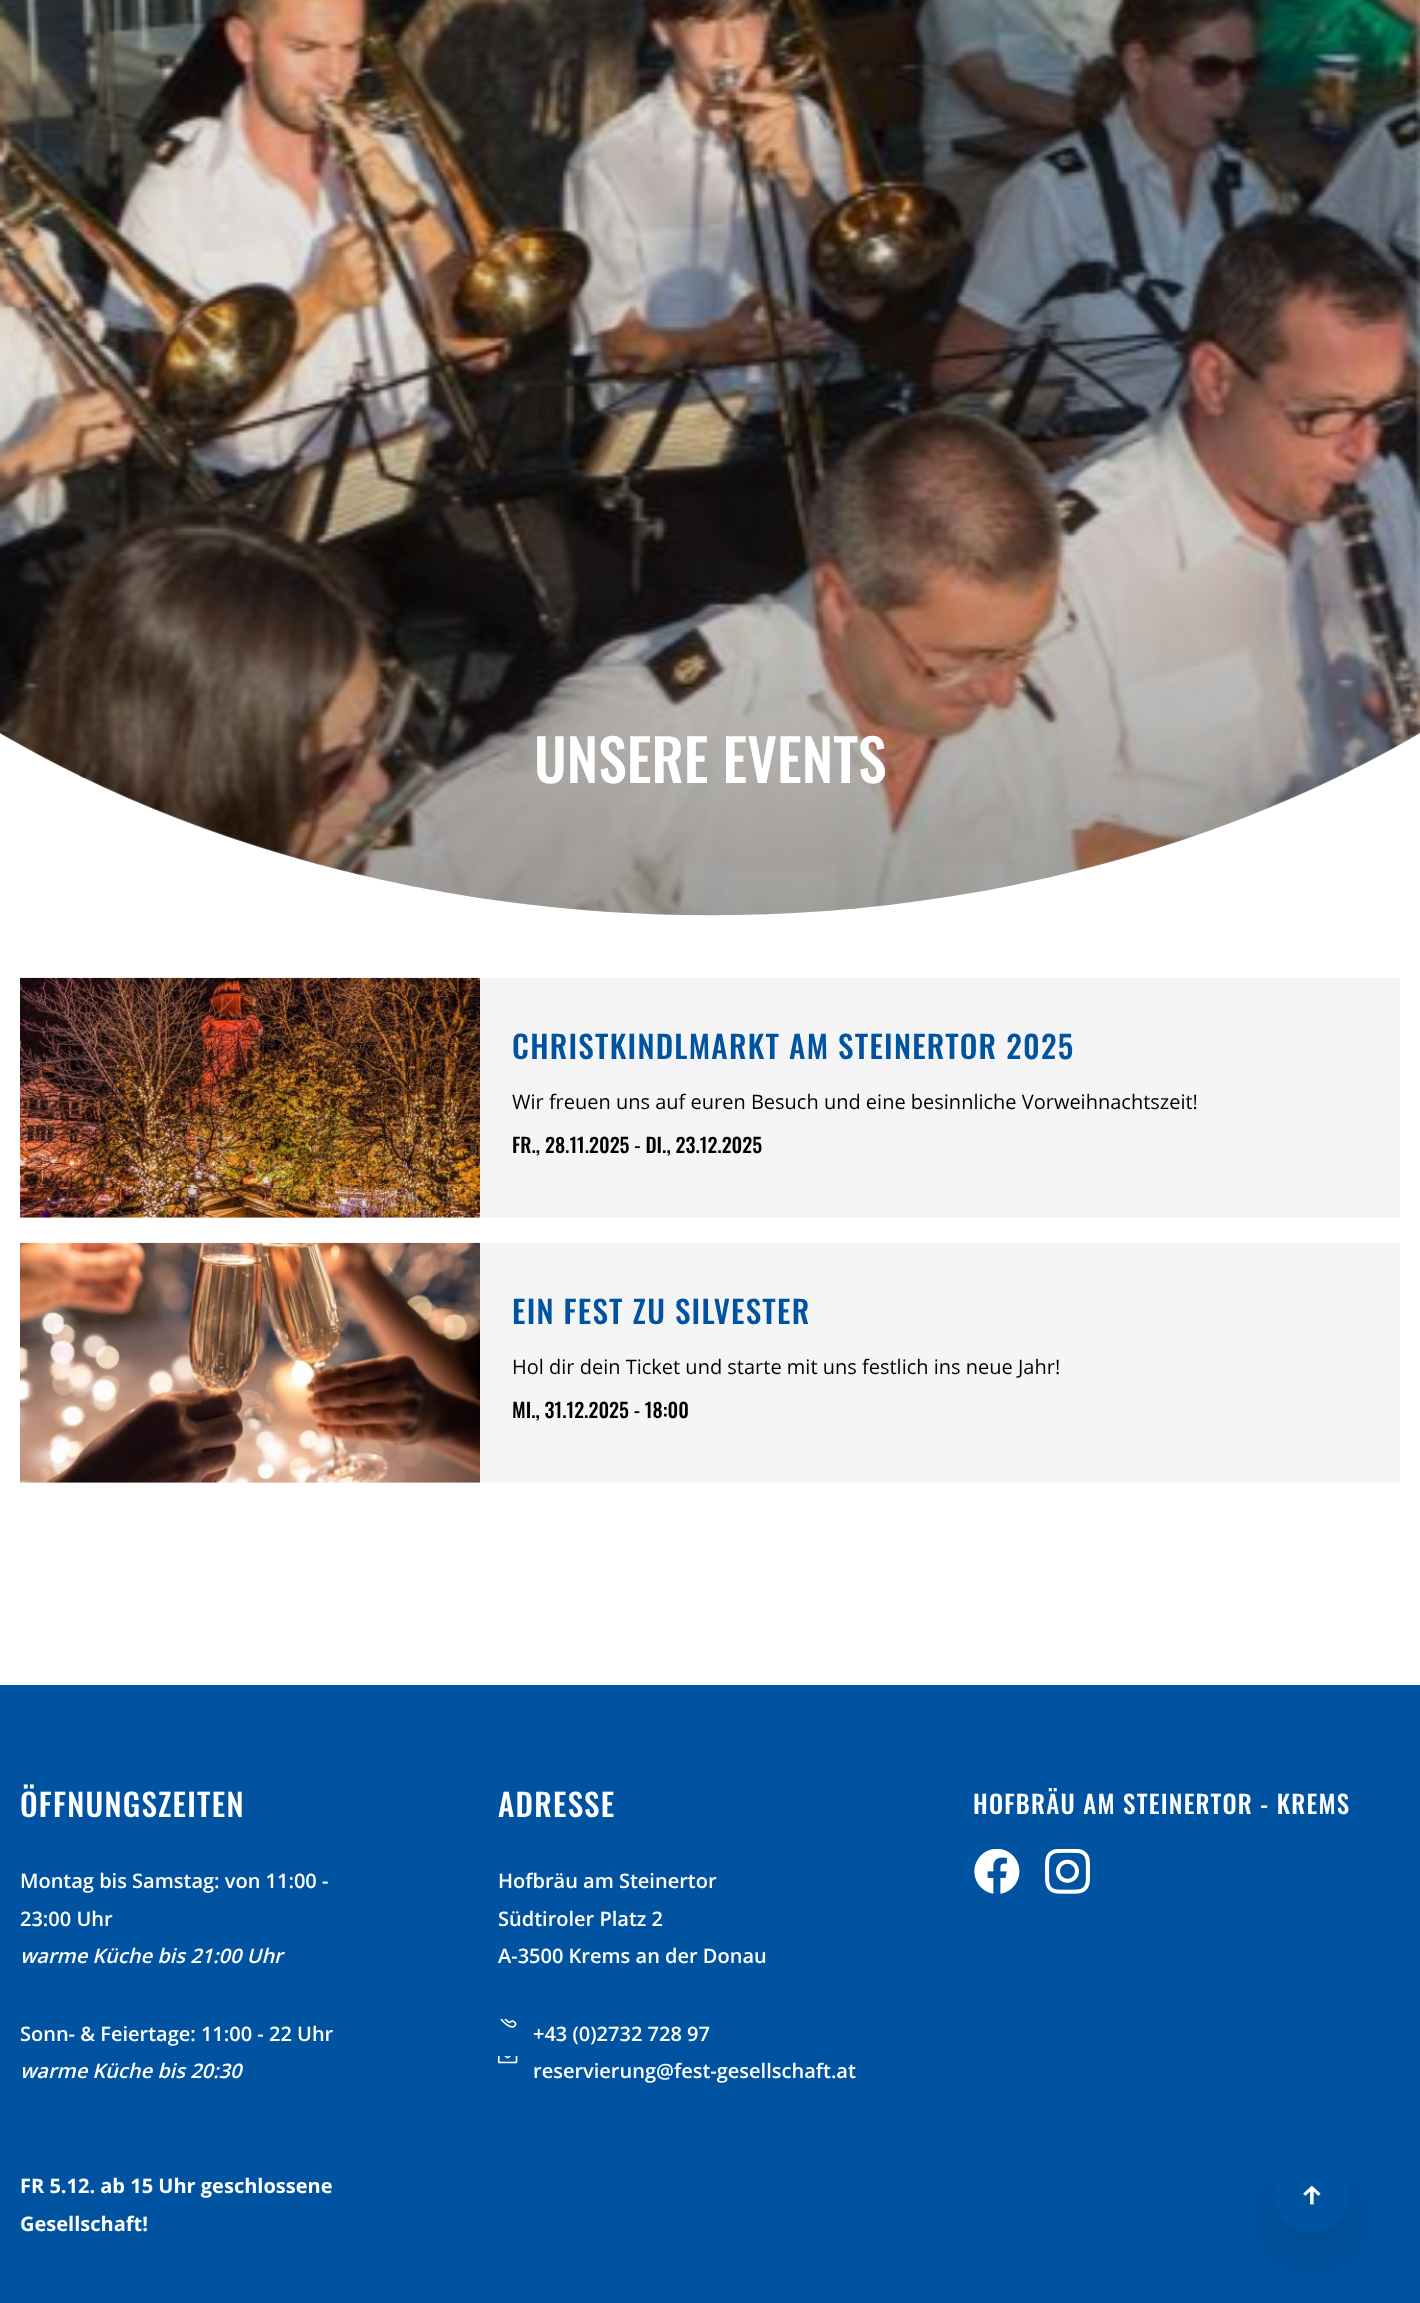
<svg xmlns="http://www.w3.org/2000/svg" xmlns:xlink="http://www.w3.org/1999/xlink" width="1420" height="2303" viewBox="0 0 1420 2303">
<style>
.cls-1{font:500 57.75px Oswald;fill:#ffffff}
.cls-2{font:500 31.25px Oswald;letter-spacing:1.25px;fill:#0053a0}
.cls-3{font:20px Open Sans;fill:#000000}
.cls-4{font:500 20px Oswald;fill:#000000}
.cls-5{font:500 31.25px Oswald;letter-spacing:1.25px;fill:#ffffff}
.cls-6{font:600 20px Open Sans;fill:#ffffff}
.cls-7{font:italic 600 20px Open Sans;fill:#ffffff}
.cls-8{font:bold 20px Open Sans;fill:#ffffff}
.cls-9{font:500 25px Oswald;letter-spacing:1.25px;fill:#ffffff}
</style>
<defs>
<linearGradient id="g1" gradientUnits="userSpaceOnUse" x1="710" y1="-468" x2="710" y2="915"><stop offset="0.6" stop-color="#000000" stop-opacity="0"/><stop offset="1" stop-color="#000000" stop-opacity="0.3"/></linearGradient>
</defs>
<rect width="100%" height="100%" fill="#ffffff"/>
<image xlink:href="image0.png" x="0" y="0" width="1420" height="915"/>
<path fill="#000000" fill-opacity="0.1" d="M0-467H1420V733C1005 976 415 976 0 733Z"/>
<path fill="url(#g1)" d="M0-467H1420V733C1005 976 415 976 0 733Z"/>
<rect fill="#f5f5f5" x="20" y="978" width="1380" height="240"/>
<image xlink:href="image1.png" x="20" y="977" width="460" height="241"/>
<rect fill="#f5f5f5" x="20" y="1243" width="1380" height="240"/>
<image xlink:href="image2.png" x="20" y="1242" width="460" height="241"/>
<rect fill="#0053a0" x="0" y="1685" width="1420" height="618"/>
<image xlink:href="image3.png" x="500" y="2019" width="17" height="9"/>
<image xlink:href="image4.png" x="498" y="2056" width="20" height="8"/>
<image xlink:href="image5.png" x="974" y="1849" width="46" height="45"/>
<image xlink:href="image6.png" x="1045" y="1849" width="45" height="45"/>
<rect fill="#000000" fill-opacity="0.11" filter="blur(25px)" x="1274" y="2180" width="75" height="75" rx="37.5"/>
<circle fill="#0053a0" cx="1311.5" cy="2195.5" r="37.5"/>
<image xlink:href="image7.png" x="1303" y="2185" width="18" height="20"/>
<text class="cls-1" x="534" y="783">UNSERE EVENTS</text>
<text class="cls-2" x="512" y="1059">CHRISTKINDLMARKT AM STEINERTOR 2025</text>
<text class="cls-3" x="512" y="1109">Wir freuen uns auf euren Besuch und eine besinnliche Vorweihnachtszeit!</text>
<text class="cls-4" x="512" y="1153">FR., 28.11.2025 - DI., 23.12.2025</text>
<text class="cls-2" x="512" y="1324">EIN FEST ZU SILVESTER</text>
<text class="cls-3" x="512" y="1374">Hol dir dein Ticket und starte mit uns festlich ins neue Jahr!</text>
<text class="cls-4" x="512" y="1418">MI., 31.12.2025 - 18:00</text>
<text class="cls-5" x="20" y="1817">ÖFFNUNGSZEITEN</text>
<text class="cls-6"><tspan x="20" y="1888">Montag bis Samstag: von 11:00 -</tspan><tspan x="20" y="1926">23:00 Uhr</tspan></text>
<text class="cls-7" x="20" y="1963">warme Küche bis 21:00 Uhr</text>
<text class="cls-6" x="20" y="2041">Sonn- &amp; Feiertage: 11:00 - 22 Uhr</text>
<text class="cls-7" x="20" y="2078">warme Küche bis 20:30</text>
<text class="cls-8"><tspan x="20" y="2193">FR 5.12. ab 15 Uhr geschlossene</tspan><tspan x="20" y="2231">Gesellschaft!</tspan></text>
<text class="cls-5" x="498" y="1817">ADRESSE</text>
<text class="cls-6"><tspan x="498" y="1888">Hofbräu am Steinertor</tspan><tspan x="498" y="1926">Südtiroler Platz 2</tspan><tspan x="498" y="1963">A-3500 Krems an der Donau</tspan></text>
<text class="cls-6"><tspan x="533" y="2041">+43 (0)2732 728 97</tspan><tspan x="533" y="2078">reservierung@fest-gesellschaft.at</tspan></text>
<text class="cls-9" x="973" y="1814">HOFBRÄU AM STEINERTOR - KREMS</text>
</svg>
